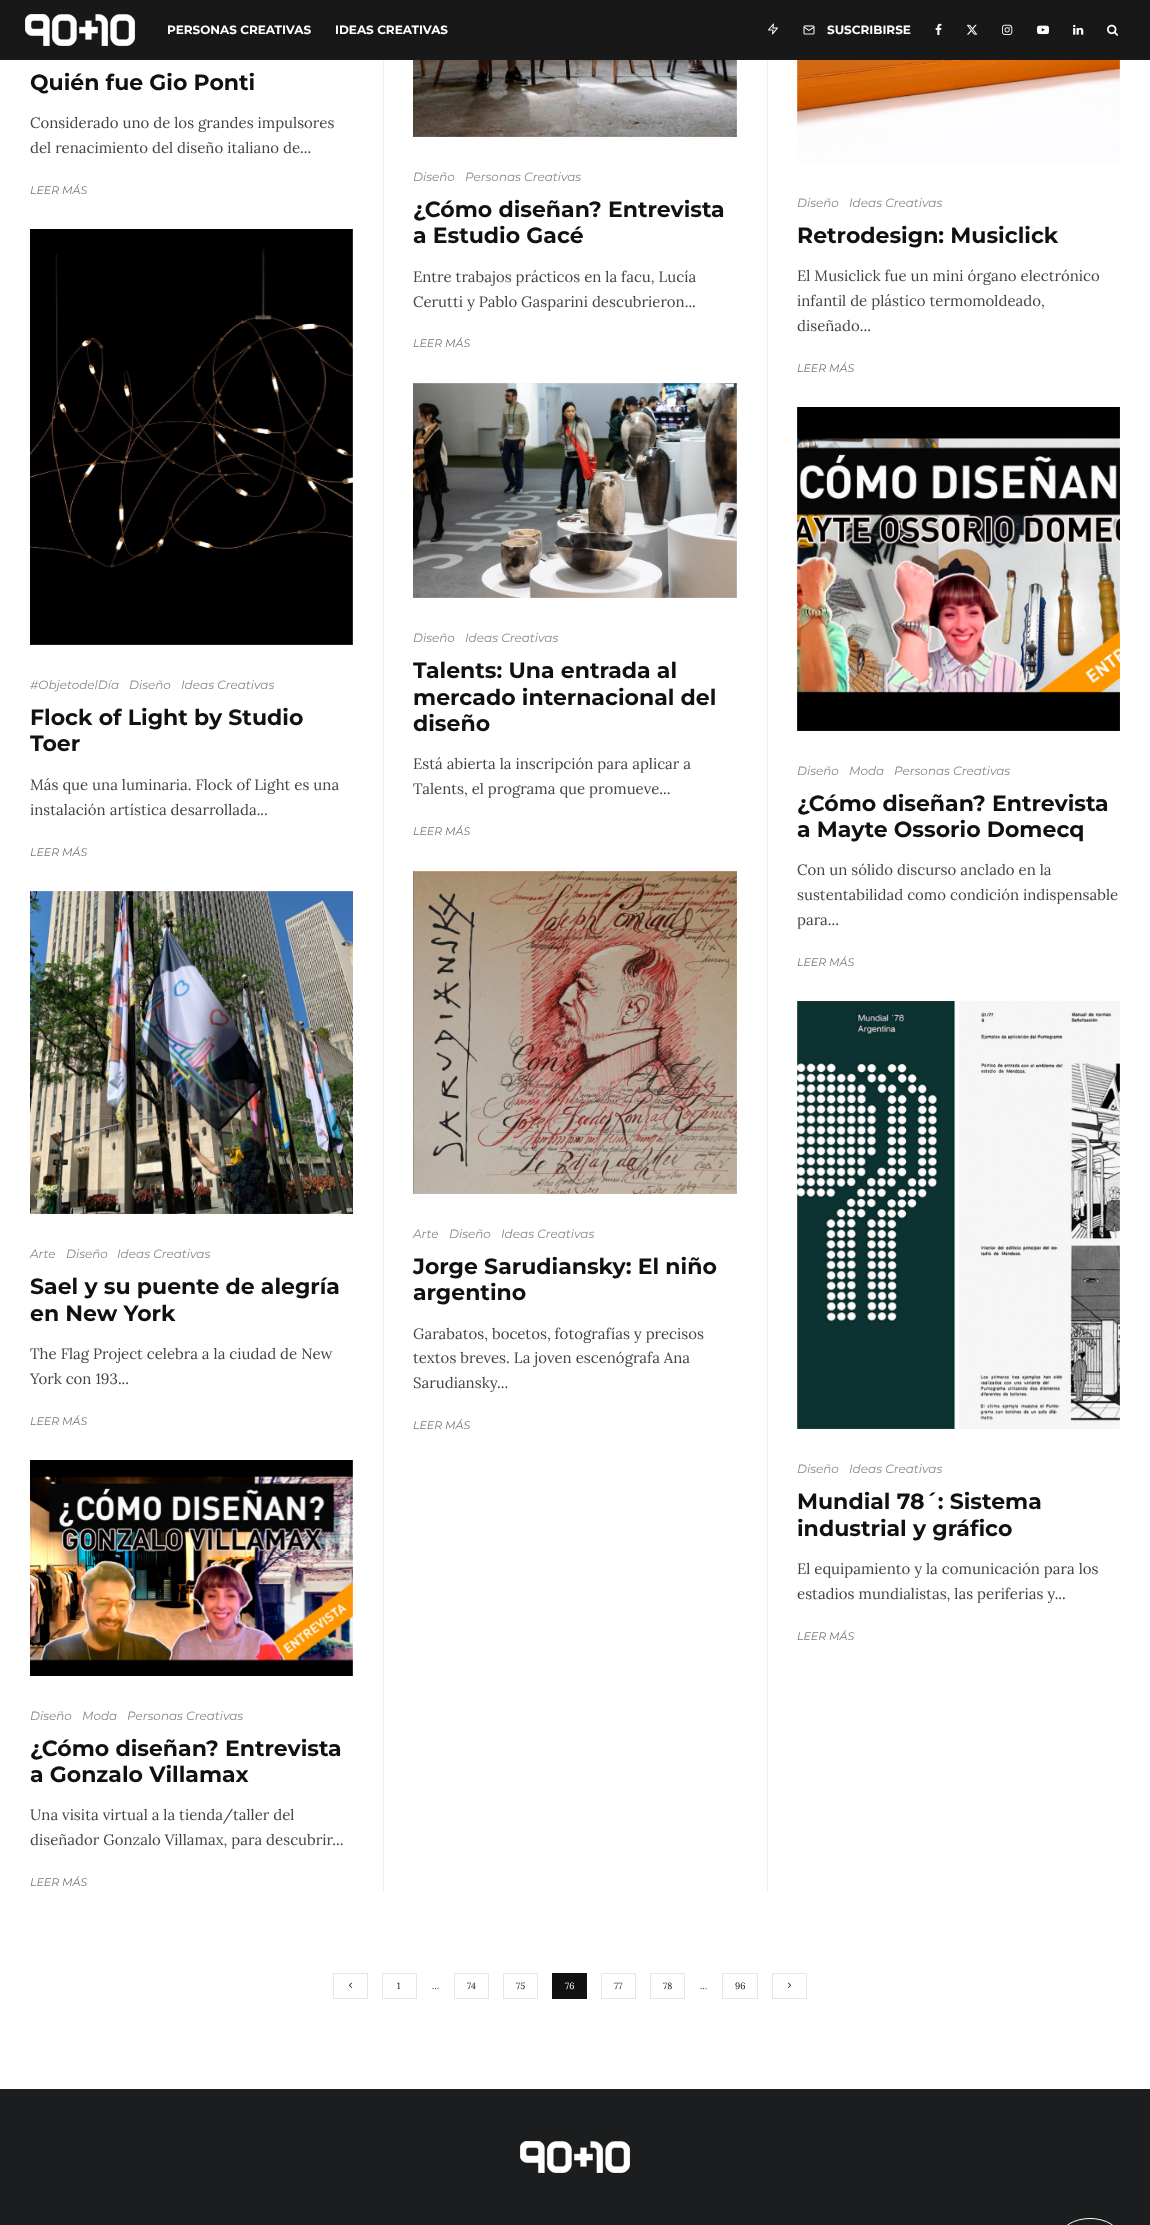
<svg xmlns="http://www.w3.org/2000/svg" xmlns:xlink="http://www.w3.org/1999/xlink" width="1150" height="2225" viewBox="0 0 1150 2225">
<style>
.cls-1{font:bold 12px Montserrat;fill:#ffffff}
.cls-2{font:bold 22px Montserrat;fill:#111111}
.cls-3{font:15px Lora;fill:#444444}
.cls-4{font:italic 11px Montserrat;fill:#767676}
.cls-5{font:italic 12px Montserrat;fill:#888888}
.cls-6{font:9px Lora;fill:#111111}
.cls-7{font:9px Lora;fill:#ffffff}
</style>
<rect width="100%" height="100%" fill="#ffffff"/>
<rect fill="#181818" x="0" y="0" width="1150" height="60"/>
<image xlink:href="image0.png" x="25" y="14" width="110" height="32"/>
<image xlink:href="image1.png" x="768" y="23" width="10" height="12"/>
<image xlink:href="image2.png" x="803" y="25" width="12" height="10"/>
<image xlink:href="image3.png" x="935" y="23" width="7" height="12"/>
<image xlink:href="image4.png" x="966" y="24" width="12" height="11"/>
<image xlink:href="image5.png" x="1002" y="24" width="11" height="11"/>
<image xlink:href="image6.png" x="1037" y="25" width="12" height="10"/>
<image xlink:href="image7.png" x="1073" y="24" width="11" height="11"/>
<image xlink:href="image8.png" x="1107" y="24" width="12" height="12"/>
<image xlink:href="image9.png" x="30" y="229" width="323" height="416"/>
<image xlink:href="image10.png" x="30" y="891" width="323" height="323"/>
<image xlink:href="image11.png" x="30" y="1460" width="323" height="216"/>
<rect fill="#eeeeee" x="383" y="60" width="1" height="1831"/>
<image xlink:href="image12.png" x="413" y="60" width="324" height="77"/>
<rect fill="#eeeeee" x="413" y="383" width="324" height="215"/>
<image xlink:href="image13.png" x="413" y="383" width="324" height="215"/>
<image xlink:href="image14.png" x="413" y="871" width="324" height="323"/>
<rect fill="#eeeeee" x="767" y="60" width="1" height="1831"/>
<image xlink:href="image15.png" x="797" y="60" width="323" height="103"/>
<image xlink:href="image16.png" x="797" y="407" width="323" height="324"/>
<image xlink:href="image17.png" x="797" y="1001" width="323" height="428"/>
<rect fill="none" stroke="#e6e6e6" x="333.5" y="1973.5" width="34" height="25"/>
<image xlink:href="image18.png" x="349" y="1982" width="3" height="6"/>
<rect fill="none" stroke="#e6e6e6" x="382.5" y="1973.5" width="34" height="25"/>
<rect fill="none" stroke="#e6e6e6" x="454.5" y="1973.5" width="34" height="25"/>
<rect fill="none" stroke="#e6e6e6" x="503.5" y="1973.5" width="34" height="25"/>
<rect fill="#111111" x="552" y="1973" width="35" height="26"/>
<rect fill="none" stroke="#e6e6e6" x="601.5" y="1973.5" width="34" height="25"/>
<rect fill="none" stroke="#e6e6e6" x="650.5" y="1973.5" width="34" height="25"/>
<rect fill="none" stroke="#e6e6e6" x="722.5" y="1973.5" width="35" height="25"/>
<rect fill="none" stroke="#e6e6e6" x="772.5" y="1973.5" width="34" height="25"/>
<image xlink:href="image19.png" x="788" y="1982" width="3" height="6"/>
<rect fill="#1c1d1e" x="0" y="2089" width="1150" height="136"/>
<image xlink:href="image20.png" x="520" y="2141" width="110" height="32"/>
<rect fill="none" stroke="#ffffff" x="1060.5" y="2218.5" width="59" height="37" rx="29.5"/>
<text class="cls-1" x="167" y="34">PERSONAS CREATIVAS</text>
<text class="cls-1" x="335" y="34">IDEAS CREATIVAS</text>
<text class="cls-1" x="827" y="34">SUSCRIBIRSE</text>
<text class="cls-2" x="30" y="90">Quién fue Gio Ponti</text>
<text class="cls-3"><tspan x="30" y="128">Considerado uno de los grandes impulsores</tspan><tspan x="30" y="153">del renacimiento del diseño italiano de...</tspan></text>
<text class="cls-4" x="30" y="194">LEER MÁS</text>
<text class="cls-5" x="30" y="689">#ObjetodelDía</text>
<text class="cls-5" x="129" y="689">Diseño</text>
<text class="cls-5" x="181" y="689">Ideas Creativas</text>
<text class="cls-2"><tspan x="30" y="725">Flock of Light by Studio</tspan><tspan x="30" y="751">Toer</tspan></text>
<text class="cls-3"><tspan x="30" y="790">Más que una luminaria. Flock of Light es una</tspan><tspan x="30" y="815">instalación artística desarrollada...</tspan></text>
<text class="cls-4" x="30" y="856">LEER MÁS</text>
<text class="cls-5" x="30" y="1258">Arte</text>
<text class="cls-5" x="66" y="1258">Diseño</text>
<text class="cls-5" x="117" y="1258">Ideas Creativas</text>
<text class="cls-2"><tspan x="30" y="1294">Sael y su puente de alegría</tspan><tspan x="30" y="1321">en New York</tspan></text>
<text class="cls-3"><tspan x="30" y="1359">The Flag Project celebra a la ciudad de New</tspan><tspan x="30" y="1384">York con 193...</tspan></text>
<text class="cls-4" x="30" y="1425">LEER MÁS</text>
<text class="cls-5" x="30" y="1720">Diseño</text>
<text class="cls-5" x="82" y="1720">Moda</text>
<text class="cls-5" x="127" y="1720">Personas Creativas</text>
<text class="cls-2"><tspan x="30" y="1756">¿Cómo diseñan? Entrevista</tspan><tspan x="30" y="1782">a Gonzalo Villamax</tspan></text>
<text class="cls-3"><tspan x="30" y="1820">Una visita virtual a la tienda/taller del</tspan><tspan x="30" y="1845">diseñador Gonzalo Villamax, para descubrir...</tspan></text>
<text class="cls-4" x="30" y="1886">LEER MÁS</text>
<text class="cls-5" x="413" y="181">Diseño</text>
<text class="cls-5" x="465" y="181">Personas Creativas</text>
<text class="cls-2"><tspan x="413" y="217">¿Cómo diseñan? Entrevista</tspan><tspan x="413" y="243">a Estudio Gacé</tspan></text>
<text class="cls-3"><tspan x="413" y="282">Entre trabajos prácticos en la facu, Lucía</tspan><tspan x="413" y="307">Cerutti y Pablo Gasparini descubrieron...</tspan></text>
<text class="cls-4" x="413" y="347">LEER MÁS</text>
<text class="cls-5" x="413" y="642">Diseño</text>
<text class="cls-5" x="465" y="642">Ideas Creativas</text>
<text class="cls-2"><tspan x="413" y="678">Talents: Una entrada al</tspan><tspan x="413" y="705">mercado internacional del</tspan><tspan x="413" y="731">diseño</tspan></text>
<text class="cls-3"><tspan x="413" y="769">Está abierta la inscripción para aplicar a</tspan><tspan x="413" y="794">Talents, el programa que promueve...</tspan></text>
<text class="cls-4" x="413" y="835">LEER MÁS</text>
<text class="cls-5" x="413" y="1238">Arte</text>
<text class="cls-5" x="449" y="1238">Diseño</text>
<text class="cls-5" x="501" y="1238">Ideas Creativas</text>
<text class="cls-2"><tspan x="413" y="1274">Jorge Sarudiansky: El niño</tspan><tspan x="413" y="1300">argentino</tspan></text>
<text class="cls-3"><tspan x="413" y="1339">Garabatos, bocetos, fotografías y precisos</tspan><tspan x="413" y="1363">textos breves. La joven escenógrafa Ana</tspan><tspan x="413" y="1388">Sarudiansky...</tspan></text>
<text class="cls-4" x="413" y="1429">LEER MÁS</text>
<text class="cls-5" x="797" y="207">Diseño</text>
<text class="cls-5" x="849" y="207">Ideas Creativas</text>
<text class="cls-2" x="797" y="243">Retrodesign: Musiclick</text>
<text class="cls-3"><tspan x="797" y="281">El Musiclick fue un mini órgano electrónico</tspan><tspan x="797" y="306">infantil de plástico termomoldeado,</tspan><tspan x="797" y="331">diseñado...</tspan></text>
<text class="cls-4" x="797" y="372">LEER MÁS</text>
<text class="cls-5" x="797" y="775">Diseño</text>
<text class="cls-5" x="849" y="775">Moda</text>
<text class="cls-5" x="894" y="775">Personas Creativas</text>
<text class="cls-2"><tspan x="797" y="811">¿Cómo diseñan? Entrevista</tspan><tspan x="797" y="837">a Mayte Ossorio Domecq</tspan></text>
<text class="cls-3"><tspan x="797" y="875">Con un sólido discurso anclado en la</tspan><tspan x="797" y="900">sustentabilidad como condición indispensable</tspan><tspan x="797" y="925">para...</tspan></text>
<text class="cls-4" x="797" y="966">LEER MÁS</text>
<text class="cls-5" x="797" y="1473">Diseño</text>
<text class="cls-5" x="849" y="1473">Ideas Creativas</text>
<text class="cls-2"><tspan x="797" y="1509">Mundial 78´: Sistema</tspan><tspan x="797" y="1536">industrial y gráfico</tspan></text>
<text class="cls-3"><tspan x="797" y="1574">El equipamiento y la comunicación para los</tspan><tspan x="797" y="1599">estadios mundialistas, las periferias y...</tspan></text>
<text class="cls-4" x="797" y="1640">LEER MÁS</text>
<text class="cls-6" x="397" y="1989">1</text>
<text class="cls-6" x="432" y="1989">…</text>
<text class="cls-6" x="467" y="1989">74</text>
<text class="cls-6" x="516" y="1989">75</text>
<text class="cls-7" x="565" y="1989">76</text>
<text class="cls-6" x="614" y="1989">77</text>
<text class="cls-6" x="663" y="1989">78</text>
<text class="cls-6" x="700" y="1989">…</text>
<text class="cls-6" x="735" y="1989">96</text>
</svg>
